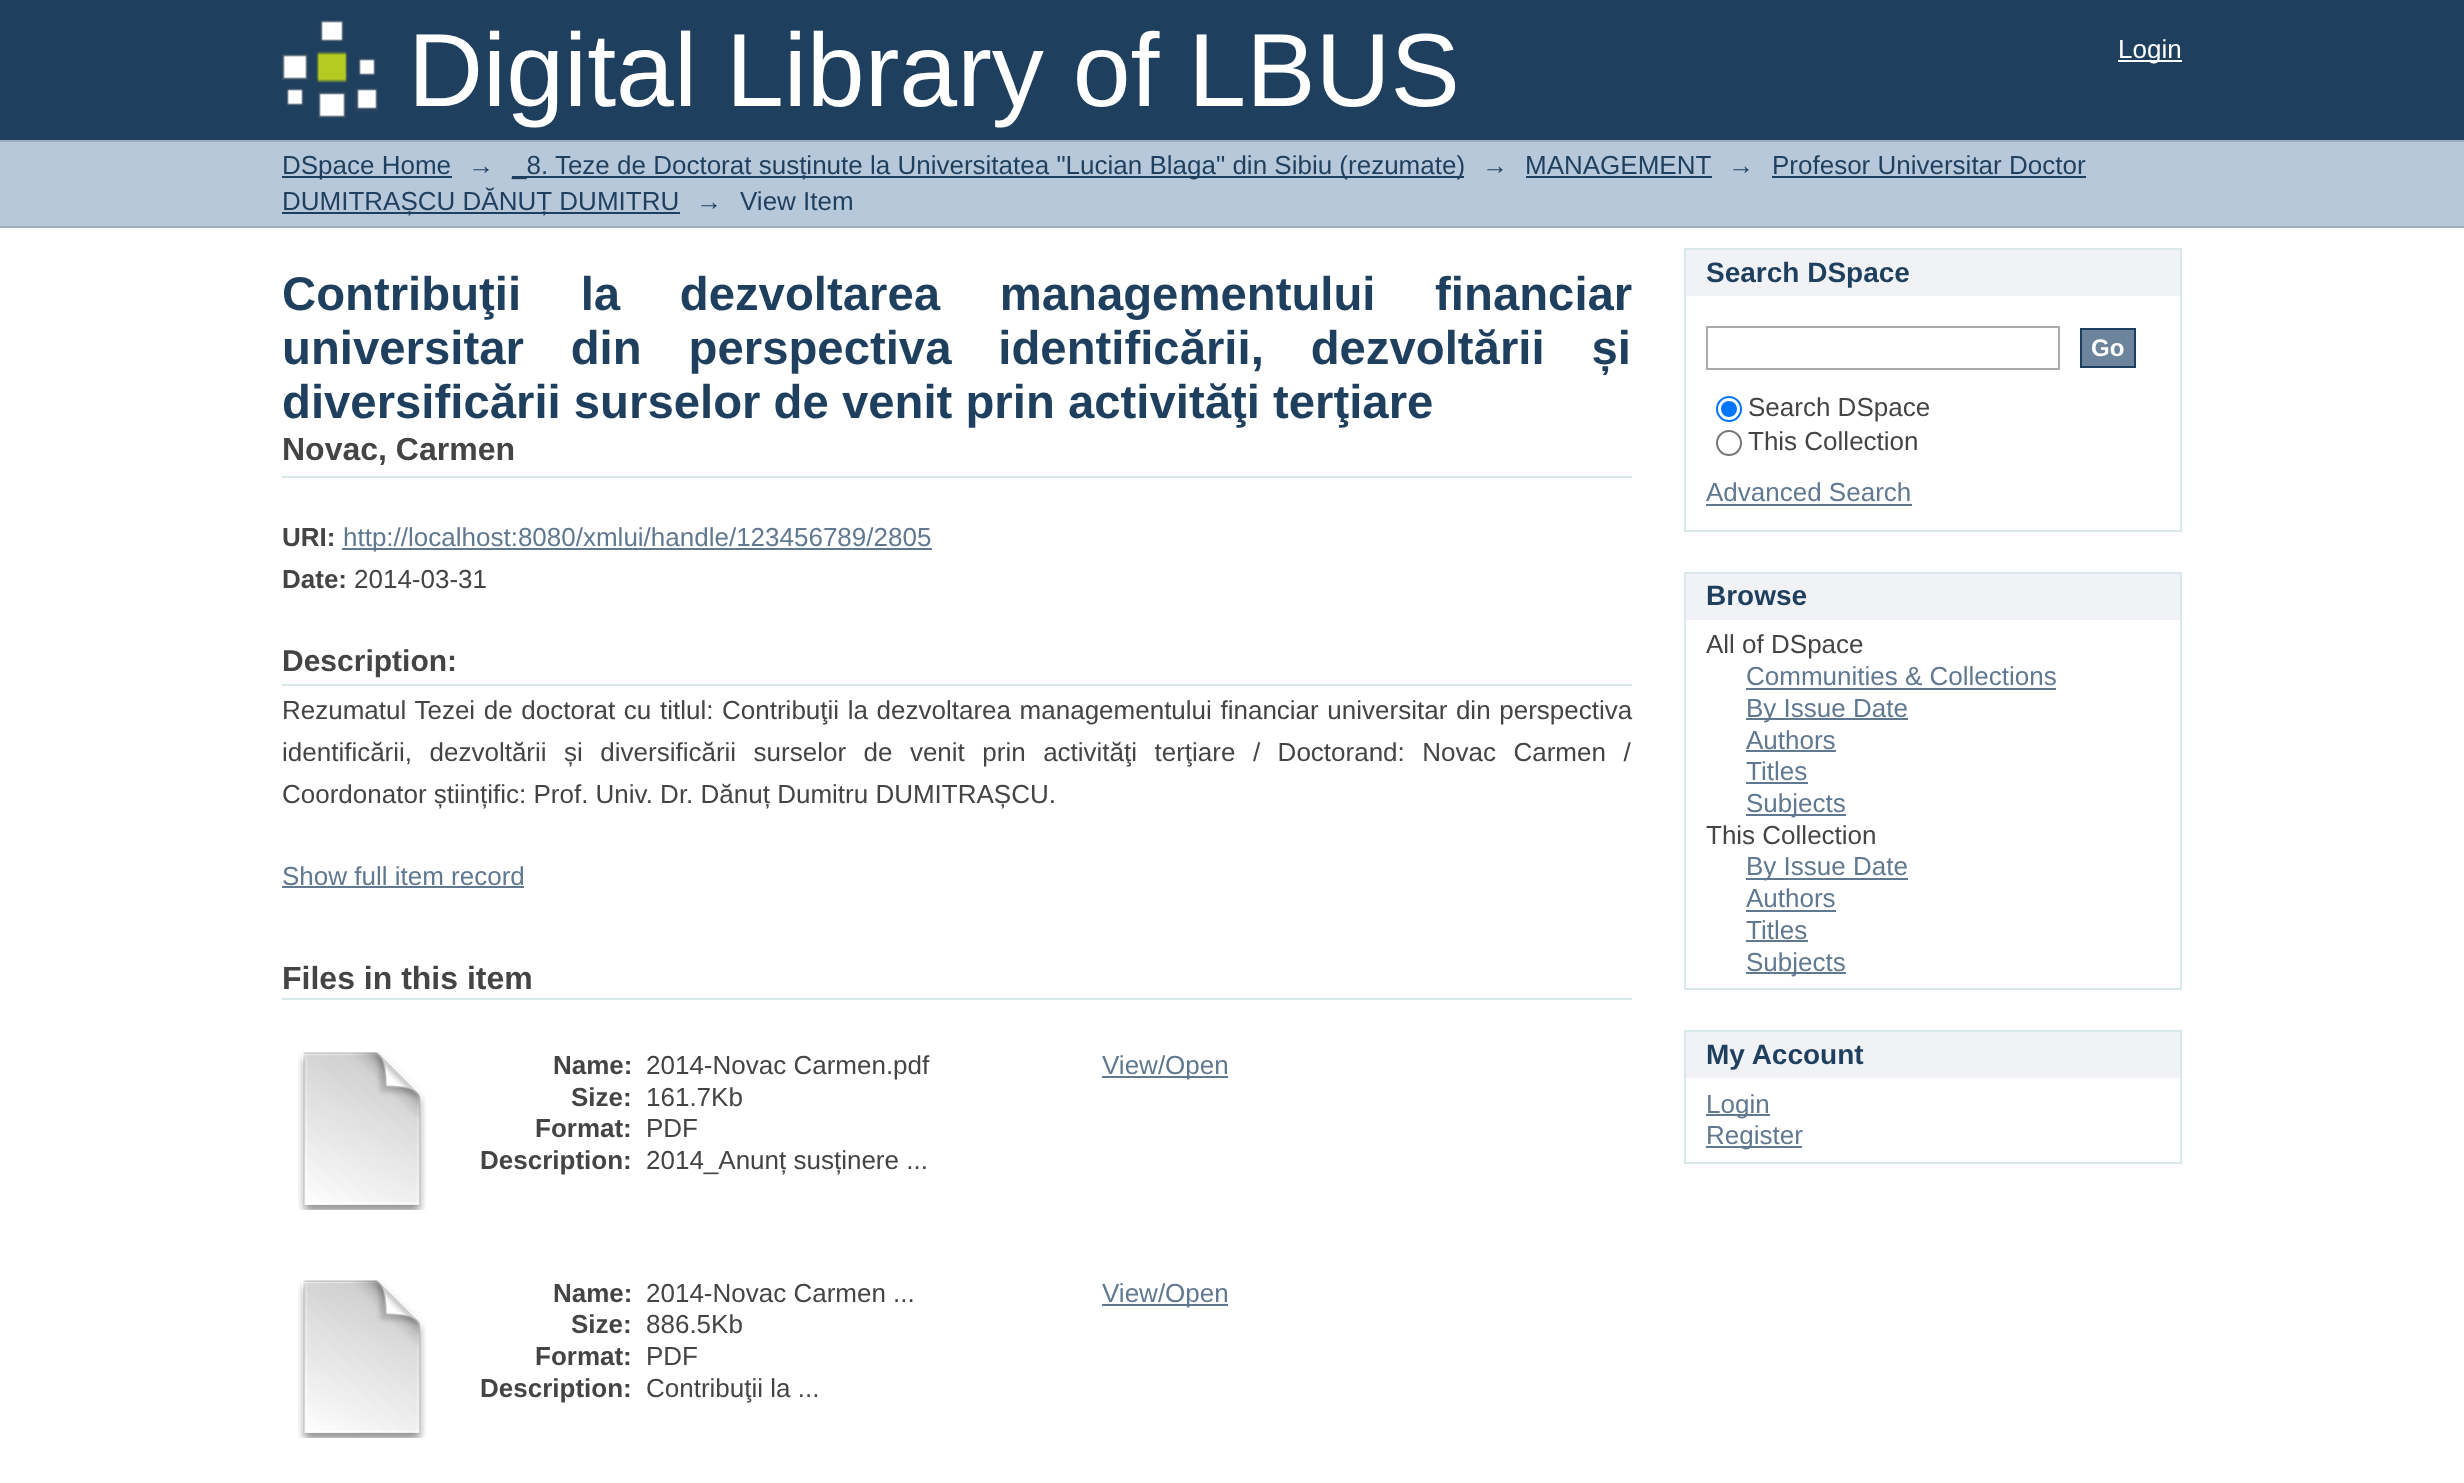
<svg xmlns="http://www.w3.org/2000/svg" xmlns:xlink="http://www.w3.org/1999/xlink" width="2464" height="1483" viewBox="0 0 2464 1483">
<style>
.cls-1{font:104px Liberation Sans;fill:#ffffff}
.cls-2{font:26px Liberation Sans;fill:#ffffff}
.cls-3{font:26px Liberation Sans;fill:#1f3f5e}
.cls-4{font:bold 47.3px Liberation Sans;fill:#1f3f5e}
.cls-5{font:bold 32px Liberation Sans;fill:#444444}
.cls-6{font:bold 26px Liberation Sans;fill:#444444}
.cls-7{font:26px Liberation Sans;fill:#607890}
.cls-8{font:26px Liberation Sans;fill:#444444}
.cls-9{font:bold 30px Liberation Sans;fill:#444444}
.cls-10{font:bold 28px Liberation Sans;fill:#1f3f5e}
.cls-11{font:bold 24px Liberation Sans;fill:#ffffff}
</style>
<rect width="100%" height="100%" fill="#ffffff"/>
<rect fill="#1f3f5e" x="0" y="0" width="2464" height="140"/>
<image xlink:href="image0.png" x="282" y="20" width="96" height="98"/>
<rect fill="#ffffff" x="2118" y="60" width="64" height="2"/>
<rect fill="#b6c8d9" x="0" y="142" width="2464" height="84"/>
<rect fill="#9cacba" x="0" y="140" width="2464" height="2"/>
<rect fill="#9cacba" x="0" y="226" width="2464" height="2"/>
<rect fill="#1f3f5e" x="282" y="176" width="170" height="2"/>
<rect fill="#1f3f5e" x="512" y="176" width="952" height="2"/>
<rect fill="#1f3f5e" x="1526" y="176" width="186" height="2"/>
<rect fill="#1f3f5e" x="1772" y="176" width="314" height="2"/>
<rect fill="#1f3f5e" x="282" y="212" width="398" height="2"/>
<rect fill="#d8e8eb" x="282" y="476" width="1350" height="2"/>
<rect fill="#607890" x="342" y="548" width="590" height="2"/>
<rect fill="#d8e8eb" x="282" y="684" width="1350" height="2"/>
<rect fill="#607890" x="282" y="886" width="242" height="2"/>
<rect fill="#d8e8eb" x="282" y="998" width="1350" height="2"/>
<image xlink:href="image1.png" x="298" y="1052" width="128" height="158"/>
<rect fill="#607890" x="1102" y="1076" width="126" height="2"/>
<image xlink:href="image1.png" x="298" y="1280" width="128" height="158"/>
<rect fill="#607890" x="1102" y="1304" width="126" height="2"/>
<rect fill="#f0f2f5" x="1686" y="250" width="494" height="46"/>
<rect fill="#d8e8eb" x="1684" y="248" width="498" height="2"/>
<rect fill="#d8e8eb" x="2180" y="248" width="2" height="284"/>
<rect fill="#d8e8eb" x="1684" y="248" width="2" height="48"/>
<rect fill="#d8e8eb" x="1684" y="530" width="498" height="2"/>
<rect fill="#d8e8eb" x="1684" y="296" width="2" height="236"/>
<rect fill="none" stroke="#aaaaaa" stroke-width="2" x="1707" y="327" width="352" height="42"/>
<rect fill="#6d859c" stroke="#1f3f5e" stroke-width="2" x="2081" y="329" width="54" height="38"/>
<circle fill="none" stroke="#0075ff" stroke-width="2" cx="1729" cy="409" r="12"/>
<circle fill="#0075ff" cx="1729" cy="409" r="8"/>
<circle fill="none" stroke="#767676" stroke-width="2" cx="1729" cy="443" r="12"/>
<rect fill="#607890" x="1706" y="504" width="206" height="2"/>
<rect fill="#f0f2f5" x="1686" y="574" width="494" height="46"/>
<rect fill="#d8e8eb" x="1684" y="572" width="498" height="2"/>
<rect fill="#d8e8eb" x="2180" y="572" width="2" height="418"/>
<rect fill="#d8e8eb" x="1684" y="572" width="2" height="48"/>
<rect fill="#d8e8eb" x="1684" y="988" width="498" height="2"/>
<rect fill="#d8e8eb" x="1684" y="620" width="2" height="370"/>
<rect fill="#607890" x="1746" y="688" width="310" height="2"/>
<rect fill="#607890" x="1746" y="718" width="162" height="2"/>
<rect fill="#607890" x="1746" y="750" width="90" height="2"/>
<rect fill="#607890" x="1746" y="782" width="62" height="2"/>
<rect fill="#607890" x="1746" y="814" width="100" height="2"/>
<rect fill="#607890" x="1746" y="878" width="162" height="2"/>
<rect fill="#607890" x="1746" y="910" width="90" height="2"/>
<rect fill="#607890" x="1746" y="940" width="62" height="2"/>
<rect fill="#607890" x="1746" y="972" width="100" height="2"/>
<rect fill="#f0f2f5" x="1686" y="1032" width="494" height="46"/>
<rect fill="#d8e8eb" x="1684" y="1030" width="498" height="2"/>
<rect fill="#d8e8eb" x="2180" y="1030" width="2" height="134"/>
<rect fill="#d8e8eb" x="1684" y="1030" width="2" height="48"/>
<rect fill="#d8e8eb" x="1684" y="1162" width="498" height="2"/>
<rect fill="#d8e8eb" x="1684" y="1078" width="2" height="86"/>
<rect fill="#607890" x="1706" y="1114" width="64" height="2"/>
<rect fill="#607890" x="1706" y="1146" width="96" height="2"/>
<text class="cls-1" x="408" y="106">Digital Library of LBUS</text>
<text class="cls-2" x="2118" y="58">Login</text>
<text class="cls-3" x="282" y="174">DSpace Home</text>
<text class="cls-3" x="468" y="174">→</text>
<text class="cls-3" x="512" y="174">_8. Teze de Doctorat susținute la Universitatea "Lucian Blaga" din Sibiu (rezumate)</text>
<text class="cls-3" x="1482" y="174">→</text>
<text class="cls-3" x="1525" y="174">MANAGEMENT</text>
<text class="cls-3" x="1728" y="174">→</text>
<text class="cls-3" x="1772" y="174">Profesor Universitar Doctor</text>
<text class="cls-3" x="282" y="210">DUMITRAȘCU DĂNUȚ DUMITRU</text>
<text class="cls-3" x="696" y="210">→</text>
<text class="cls-3" x="740" y="210">View Item</text>
<text class="cls-4"><tspan x="282" y="310" word-spacing="46.5">Contribuţii la dezvoltarea managementului financiar</tspan><tspan x="282" y="364" word-spacing="33.75">universitar din perspectiva identificării, dezvoltării și</tspan><tspan x="282" y="418">diversificării surselor de venit prin activităţi terţiare</tspan></text>
<text class="cls-5" x="282" y="460">Novac, Carmen</text>
<text class="cls-6" x="282" y="546">URI:</text>
<text class="cls-7" x="343" y="546">http://localhost:8080/xmlui/handle/123456789/2805</text>
<text class="cls-6" x="282" y="588">Date:</text>
<text class="cls-8" x="354" y="588">2014-03-31</text>
<text class="cls-9" x="282" y="671">Description:</text>
<text class="cls-8"><tspan x="282" y="719" word-spacing="1.4">Rezumatul Tezei de doctorat cu titlul: Contribuţii la dezvoltarea managementului financiar universitar din perspectiva</tspan><tspan x="282" y="761" word-spacing="10.25">identificării, dezvoltării și diversificării surselor de venit prin activităţi terţiare / Doctorand: Novac Carmen /</tspan><tspan x="282" y="803">Coordonator științific: Prof. Univ. Dr. Dănuț Dumitru DUMITRAȘCU.</tspan></text>
<text class="cls-7" x="282" y="885">Show full item record</text>
<text class="cls-5" x="282" y="989">Files in this item</text>
<text class="cls-6" x="553" y="1074">Name:</text>
<text class="cls-8" x="646" y="1074">2014-Novac Carmen.pdf</text>
<text class="cls-6" x="571" y="1106">Size:</text>
<text class="cls-8" x="646" y="1106">161.7Kb</text>
<text class="cls-6" x="535" y="1137">Format:</text>
<text class="cls-8" x="646" y="1137">PDF</text>
<text class="cls-6" x="480" y="1169">Description:</text>
<text class="cls-8" x="646" y="1169">2014_Anunț susținere ...</text>
<text class="cls-7" x="1102" y="1074">View/Open</text>
<text class="cls-6" x="553" y="1302">Name:</text>
<text class="cls-8" x="646" y="1302">2014-Novac Carmen ...</text>
<text class="cls-6" x="571" y="1333">Size:</text>
<text class="cls-8" x="646" y="1333">886.5Kb</text>
<text class="cls-6" x="535" y="1365">Format:</text>
<text class="cls-8" x="646" y="1365">PDF</text>
<text class="cls-6" x="480" y="1397">Description:</text>
<text class="cls-8" x="646" y="1397">Contribuţii la ...</text>
<text class="cls-7" x="1102" y="1302">View/Open</text>
<text class="cls-10" x="1706" y="282">Search DSpace</text>
<text class="cls-11" x="2091" y="356">Go</text>
<text class="cls-8"><tspan x="1748" y="416">Search DSpace</tspan><tspan x="1748" y="450">This Collection</tspan></text>
<text class="cls-7" x="1706" y="501">Advanced Search</text>
<text class="cls-10" x="1706" y="605">Browse</text>
<text class="cls-8" x="1706" y="653">All of DSpace</text>
<text class="cls-7"><tspan x="1746" y="685">Communities &amp; Collections</tspan><tspan x="1746" y="717">By Issue Date</tspan><tspan x="1746" y="749">Authors</tspan><tspan x="1746" y="780">Titles</tspan><tspan x="1746" y="812">Subjects</tspan></text>
<text class="cls-8" x="1706" y="844">This Collection</text>
<text class="cls-7"><tspan x="1746" y="875">By Issue Date</tspan><tspan x="1746" y="907">Authors</tspan><tspan x="1746" y="939">Titles</tspan><tspan x="1746" y="971">Subjects</tspan></text>
<text class="cls-10" x="1706" y="1064">My Account</text>
<text class="cls-7"><tspan x="1706" y="1113">Login</tspan><tspan x="1706" y="1144">Register</tspan></text>
</svg>
